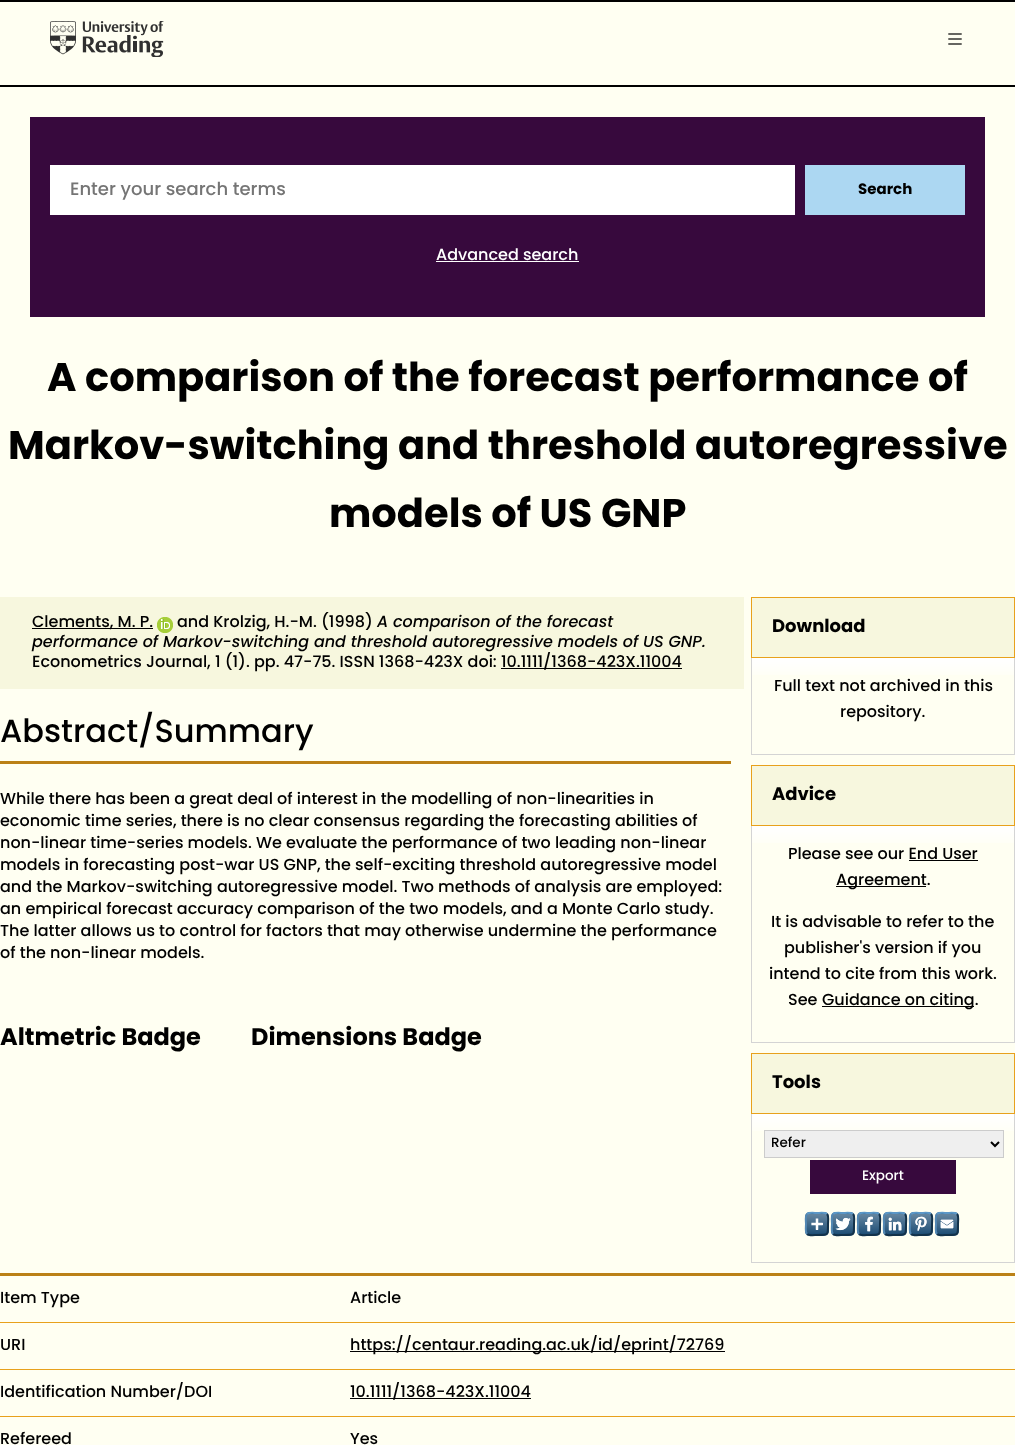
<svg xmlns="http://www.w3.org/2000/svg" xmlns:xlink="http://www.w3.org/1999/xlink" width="1015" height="1445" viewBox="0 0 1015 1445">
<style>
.cls-1{font:500 18px Poppins;fill:#757575}
.cls-2{font:bold 15px Poppins;fill:#000000}
.cls-3{font:500 16px Poppins;fill:#ffffff}
.cls-4{font:bold 40px Poppins;fill:#000000}
.cls-5{font:500 16px Poppins;fill:#000000}
.cls-6{font:italic 500 16px Poppins;fill:#000000}
.cls-7{font:500 32px Poppins;fill:#000000}
.cls-8{font:bold 24px Poppins;fill:#000000}
.cls-9{font:bold 18px Poppins;fill:#000000}
.cls-10{font:500 13.5px Poppins;fill:#000000}
.cls-11{font:500 13.5px Poppins;fill:#ffffff}
</style>
<rect width="100%" height="100%" fill="#fffff2"/>
<rect fill="#000000" x="0" y="0" width="1015" height="2"/>
<rect fill="#000000" x="0" y="85" width="1015" height="2"/>
<image xlink:href="image0.png" x="50" y="21" width="114" height="36"/>
<image xlink:href="image1.png" x="948" y="33" width="14" height="12"/>
<rect fill="#37093d" x="30" y="117" width="955" height="200"/>
<rect fill="#ffffff" x="50" y="165" width="745" height="50"/>
<rect fill="#acd7f2" x="805" y="165" width="160" height="50"/>
<rect fill="#ffffff" x="436" y="261" width="143" height="1"/>
<rect fill="#f7f7de" x="0" y="597" width="744" height="92"/>
<rect fill="#000000" x="32" y="628" width="121" height="1"/>
<image xlink:href="image2.png" x="157" y="617" width="16" height="16"/>
<rect fill="#000000" x="501" y="668" width="181" height="1"/>
<rect fill="#bb8116" x="0" y="761" width="731" height="3"/>
<rect fill="#bb8116" x="0" y="1273" width="1015" height="3"/>
<rect fill="#e8a11c" x="0" y="1322" width="1015" height="1"/>
<rect fill="#e8a11c" x="0" y="1369" width="1015" height="1"/>
<rect fill="#000000" x="350" y="1351" width="375" height="1"/>
<rect fill="#e8a11c" x="0" y="1416" width="1015" height="1"/>
<rect fill="#000000" x="350" y="1398" width="181" height="1"/>
<rect fill="#f7f7de" stroke="#e8a11c" x="751.5" y="597.5" width="263" height="60"/>
<image xlink:href="image3.png" x="752" y="658" width="262" height="17"/>
<rect fill="#d4d4d4" x="1014" y="658" width="1" height="97"/>
<rect fill="#d4d4d4" x="751" y="754" width="264" height="1"/>
<rect fill="#d4d4d4" x="751" y="658" width="1" height="97"/>
<rect fill="#f7f7de" stroke="#e8a11c" x="751.5" y="765.5" width="263" height="60"/>
<image xlink:href="image3.png" x="752" y="826" width="262" height="17"/>
<rect fill="#d4d4d4" x="1014" y="826" width="1" height="217"/>
<rect fill="#d4d4d4" x="751" y="1042" width="264" height="1"/>
<rect fill="#d4d4d4" x="751" y="826" width="1" height="217"/>
<rect fill="#000000" x="909" y="860" width="69" height="1"/>
<rect fill="#000000" x="836" y="886" width="90" height="1"/>
<rect fill="#000000" x="822" y="1006" width="152" height="1"/>
<rect fill="#f7f7de" stroke="#e8a11c" x="751.5" y="1053.5" width="263" height="60"/>
<image xlink:href="image3.png" x="752" y="1114" width="262" height="17"/>
<rect fill="#d4d4d4" x="1014" y="1114" width="1" height="149"/>
<rect fill="#d4d4d4" x="751" y="1262" width="264" height="1"/>
<rect fill="#d4d4d4" x="751" y="1114" width="1" height="149"/>
<rect fill="#efefef" stroke="#cccccc" x="764.5" y="1130.5" width="239" height="27"/>
<path fill="none" stroke="#000000" stroke-width="2" d="M991 1142L995 1146L999 1142"/>
<rect fill="#37093d" x="810" y="1160" width="146" height="34"/>
<rect fill="#1f4f76" x="805" y="1212" width="24" height="24" rx="5"/>
<image xlink:href="image4.png" x="805" y="1214" width="24" height="19"/>
<path fill="none" stroke="#5b97c7" stroke-width="2" d="M807 1214C809 1212 814.5 1213 817 1213C819.5 1213 825 1212 827 1214"/>
<rect fill="#1f4f76" x="831" y="1212" width="24" height="24" rx="5"/>
<image xlink:href="image5.png" x="831" y="1214" width="24" height="19"/>
<path fill="none" stroke="#5b97c7" stroke-width="2" d="M833 1214C835 1212 840.5 1213 843 1213C845.5 1213 851 1212 853 1214"/>
<rect fill="#1f4f76" x="857" y="1212" width="24" height="24" rx="5"/>
<image xlink:href="image6.png" x="857" y="1214" width="24" height="19"/>
<path fill="none" stroke="#5b97c7" stroke-width="2" d="M859 1214C861 1212 866.5 1213 869 1213C871.5 1213 877 1212 879 1214"/>
<rect fill="#1f4f76" x="883" y="1212" width="24" height="24" rx="5"/>
<image xlink:href="image7.png" x="883" y="1214" width="24" height="19"/>
<path fill="none" stroke="#5b97c7" stroke-width="2" d="M885 1214C887 1212 892.5 1213 895 1213C897.5 1213 903 1212 905 1214"/>
<rect fill="#1f4f76" x="909" y="1212" width="24" height="24" rx="5"/>
<image xlink:href="image8.png" x="909" y="1214" width="24" height="19"/>
<path fill="none" stroke="#5b97c7" stroke-width="2" d="M911 1214C913 1212 918.5 1213 921 1213C923.5 1213 929 1212 931 1214"/>
<rect fill="#1f4f76" x="935" y="1212" width="24" height="24" rx="5"/>
<image xlink:href="image13.png" x="935" y="1214" width="24" height="19"/>
<path fill="none" stroke="#5b97c7" stroke-width="2" d="M937 1214C939 1212 944.5 1213 947 1213C949.5 1213 955 1212 957 1214"/>
<path fill="none" stroke="#13324a" stroke-width="2" d="M827 1214C829 1216 828 1221.5 828 1224C828 1235.5 828.5 1235 817 1235C814.5 1235 809 1236 807 1234"/>
<path fill="none" stroke="#5287b3" stroke-width="2" d="M807 1234C805 1232 806 1226.5 806 1224C806 1221.5 805 1216 807 1214"/>
<path fill="none" stroke="#13324a" stroke-width="2" d="M853 1214C855 1216 854 1221.5 854 1224C854 1235.5 854.5 1235 843 1235C840.5 1235 835 1236 833 1234"/>
<path fill="none" stroke="#5287b3" stroke-width="2" d="M833 1234C831 1232 832 1226.5 832 1224C832 1221.5 831 1216 833 1214"/>
<path fill="none" stroke="#13324a" stroke-width="2" d="M879 1214C881 1216 880 1221.5 880 1224C880 1235.5 880.5 1235 869 1235C866.5 1235 861 1236 859 1234"/>
<path fill="none" stroke="#5287b3" stroke-width="2" d="M859 1234C857 1232 858 1226.5 858 1224C858 1221.5 857 1216 859 1214"/>
<path fill="none" stroke="#13324a" stroke-width="2" d="M905 1214C907 1216 906 1221.5 906 1224C906 1235.5 906.5 1235 895 1235C892.5 1235 887 1236 885 1234"/>
<path fill="none" stroke="#5287b3" stroke-width="2" d="M885 1234C883 1232 884 1226.5 884 1224C884 1221.5 883 1216 885 1214"/>
<path fill="none" stroke="#13324a" stroke-width="2" d="M931 1214C933 1216 932 1221.5 932 1224C932 1235.5 932.5 1235 921 1235C918.5 1235 913 1236 911 1234"/>
<path fill="none" stroke="#5287b3" stroke-width="2" d="M911 1234C909 1232 910 1226.5 910 1224C910 1221.5 909 1216 911 1214"/>
<path fill="none" stroke="#13324a" stroke-width="2" d="M957 1214C959 1216 958 1221.5 958 1224C958 1235.5 958.5 1235 947 1235C944.5 1235 939 1236 937 1234"/>
<path fill="none" stroke="#5287b3" stroke-width="2" d="M937 1234C935 1232 936 1226.5 936 1224C936 1221.5 935 1216 937 1214"/>
<image xlink:href="image9.png" x="835" y="1217" width="16" height="14"/>
<image xlink:href="image10.png" x="865" y="1216" width="8" height="16"/>
<image xlink:href="image11.png" x="888" y="1217" width="14" height="14"/>
<image xlink:href="image12.png" x="915" y="1216" width="12" height="16"/>
<rect fill="#ffffff" x="822" y="1223" width="1" height="2"/>
<image xlink:href="image14.png" x="940" y="1219" width="14" height="10"/>
<rect fill="#ffffff" x="816" y="1229" width="2" height="1"/>
<text class="cls-1" x="70" y="195">Enter your search terms</text>
<text class="cls-2" x="858" y="194">Search</text>
<text class="cls-3" x="436" y="260">Advanced search</text>
<text class="cls-4" x="47" y="391">A comparison of the forecast performance of</text>
<text class="cls-4" x="8" y="459">Markov-switching and threshold autoregressive</text>
<text class="cls-4" x="329" y="527">models of US GNP</text>
<text class="cls-5" x="32" y="627">Clements, M. P.</text>
<text class="cls-5" x="177" y="627">and Krolzig, H.-M. (1998)</text>
<text class="cls-6" x="377" y="627">A comparison of the forecast</text>
<text class="cls-6" x="32" y="647">performance of Markov-switching and threshold autoregressive models of US GNP.</text>
<text class="cls-5" x="32" y="667">Econometrics Journal, 1 (1). pp. 47-75. ISSN 1368-423X doi:</text>
<text class="cls-5" x="501" y="667">10.1111/1368-423X.11004</text>
<text class="cls-7" x="0" y="742">Abstract/Summary</text>
<text class="cls-5"><tspan x="0" y="804">While there has been a great deal of interest in the modelling of non-linearities in</tspan><tspan x="0" y="826">economic time series, there is no clear consensus regarding the forecasting abilities of</tspan><tspan x="0" y="848">non-linear time-series models. We evaluate the performance of two leading non-linear</tspan><tspan x="0" y="870">models in forecasting post-war US GNP, the self-exciting threshold autoregressive model</tspan><tspan x="0" y="892">and the Markov-switching autoregressive model. Two methods of analysis are employed:</tspan><tspan x="0" y="914">an empirical forecast accuracy comparison of the two models, and a Monte Carlo study.</tspan><tspan x="0" y="936">The latter allows us to control for factors that may otherwise undermine the performance</tspan><tspan x="0" y="958">of the non-linear models.</tspan></text>
<text class="cls-8" x="0" y="1045">Altmetric Badge</text>
<text class="cls-8" x="251" y="1045">Dimensions Badge</text>
<text class="cls-5" x="0" y="1303">Item Type</text>
<text class="cls-5" x="350" y="1303">Article</text>
<text class="cls-5" x="0" y="1350">URI</text>
<text class="cls-5" x="350" y="1350">https://centaur.reading.ac.uk/id/eprint/72769</text>
<text class="cls-5" x="0" y="1397">Identification Number/DOI</text>
<text class="cls-5" x="350" y="1397">10.1111/1368-423X.11004</text>
<text class="cls-5" x="0" y="1444">Refereed</text>
<text class="cls-5" x="350" y="1444">Yes</text>
<text class="cls-9" x="772" y="632">Download</text>
<text class="cls-5" x="774" y="691">Full text not archived in this</text>
<text class="cls-5" x="840" y="717">repository.</text>
<text class="cls-9" x="772" y="800">Advice</text>
<text class="cls-5" x="788" y="859">Please see our End User</text>
<text class="cls-5" x="836" y="885">Agreement.</text>
<text class="cls-5" x="771" y="927">It is advisable to refer to the</text>
<text class="cls-5" x="784" y="953">publisher's version if you</text>
<text class="cls-5" x="769" y="979">intend to cite from this work.</text>
<text class="cls-5" x="788" y="1005">See</text>
<text class="cls-5" x="822" y="1005">Guidance on citing.</text>
<text class="cls-9" x="772" y="1088">Tools</text>
<text class="cls-10" x="771" y="1147">Refer</text>
<text class="cls-11" x="862" y="1180">Export</text>
</svg>
